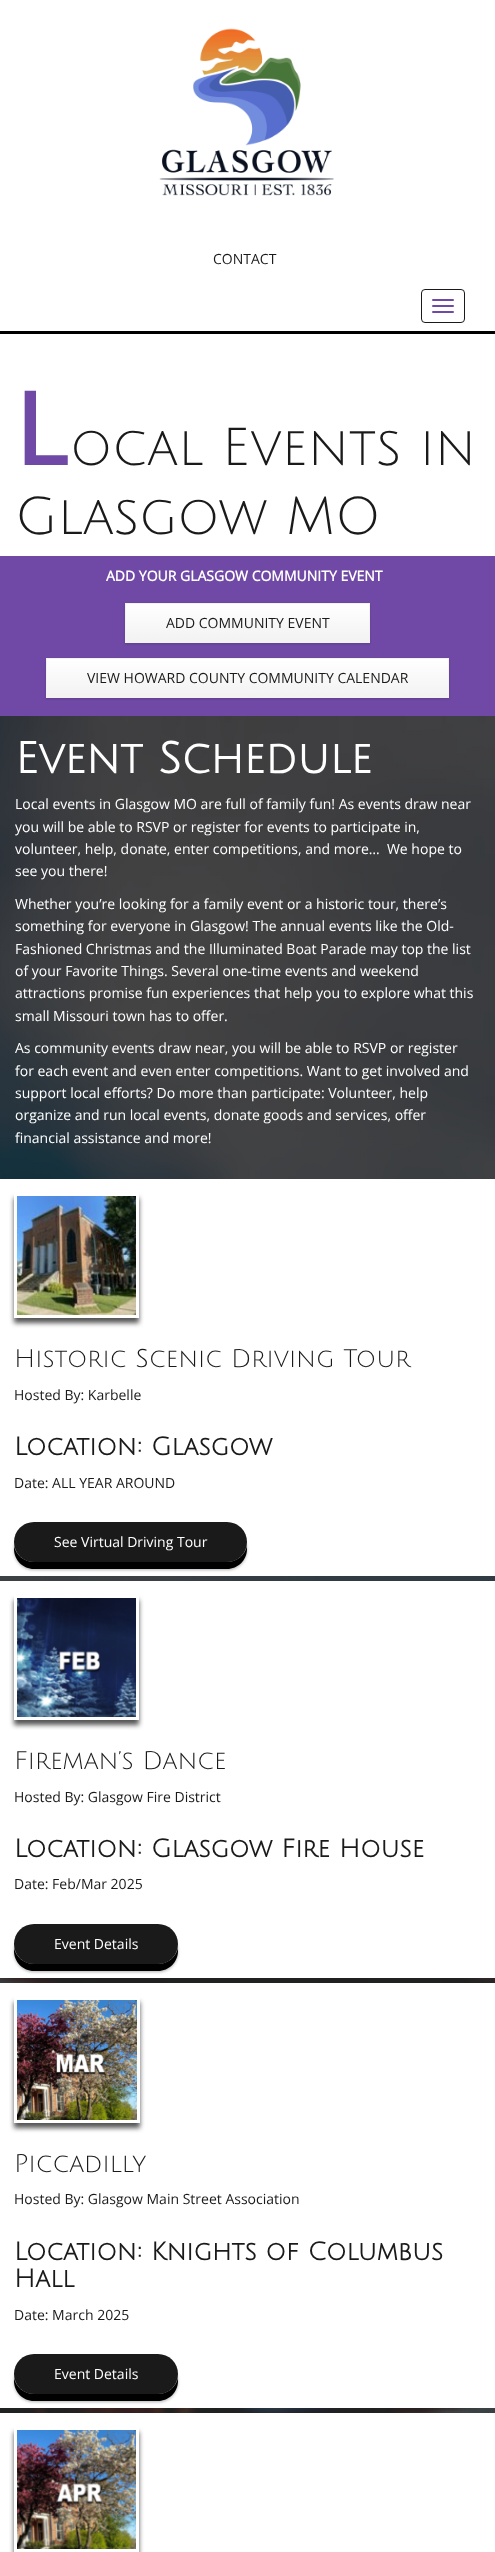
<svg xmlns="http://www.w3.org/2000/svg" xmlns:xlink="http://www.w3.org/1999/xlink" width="495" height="2552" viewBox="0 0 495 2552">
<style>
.cls-1{font:14px Open Sans;fill:#1a1a1a}
.cls-2{font:500 104px Noto Sans;fill:#6f49a5}
.cls-3{font:52px Julius Sans One;fill:#1a1a1a}
.cls-4{font:bold 14px Open Sans;fill:#ffffff}
.cls-5{font:bold 43px Julius Sans One;fill:#ffffff}
.cls-6{font:14px Open Sans;fill:#ffffff}
.cls-7{font:25px Julius Sans One;fill:#1a1a1a}
.cls-8{font:bold 25px Julius Sans One;fill:#1a1a1a}
</style>
<defs>
<linearGradient id="g1" gradientUnits="userSpaceOnUse" x1="248" y1="604" x2="248" y2="642"><stop offset="0" stop-color="#ffffff"/><stop offset="1" stop-color="#f2f2f2"/></linearGradient>
<linearGradient id="g2" gradientUnits="userSpaceOnUse" x1="248" y1="659" x2="248" y2="697"><stop offset="0" stop-color="#ffffff"/><stop offset="1" stop-color="#f2f2f2"/></linearGradient>
<clipPath id="clip1"><path d="M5 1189H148V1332H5ZM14 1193H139V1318H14Z" clip-rule="evenodd"/></clipPath>
<clipPath id="clip2"><path d="M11 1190H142V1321H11ZM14 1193H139V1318H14Z" clip-rule="evenodd"/></clipPath>
<clipPath id="clip3"><path d="M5 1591H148V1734H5ZM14 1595H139V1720H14Z" clip-rule="evenodd"/></clipPath>
<clipPath id="clip4"><path d="M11 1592H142V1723H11ZM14 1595H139V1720H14Z" clip-rule="evenodd"/></clipPath>
<clipPath id="clip5"><path d="M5 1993H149V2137H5ZM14 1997H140V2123H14Z" clip-rule="evenodd"/></clipPath>
<clipPath id="clip6"><path d="M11 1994H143V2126H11ZM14 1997H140V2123H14Z" clip-rule="evenodd"/></clipPath>
<clipPath id="clip7"><path d="M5 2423H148V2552H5ZM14 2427H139V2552H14Z" clip-rule="evenodd"/></clipPath>
<clipPath id="clip8"><path d="M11 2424H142V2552H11ZM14 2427H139V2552H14Z" clip-rule="evenodd"/></clipPath>
</defs>
<rect width="100%" height="100%" fill="#ffffff"/>
<image xlink:href="image0.png" x="159" y="28" width="175" height="168"/>
<rect fill="#000000" x="0" y="331" width="495" height="3"/>
<rect fill="none" stroke="#1a1a1a" x="421.5" y="289.5" width="43" height="33" rx="3.5"/>
<rect fill="#6f49a5" x="432" y="299" width="22" height="2" rx="1"/>
<rect fill="#6f49a5" x="432" y="305" width="22" height="2" rx="1"/>
<rect fill="#6f49a5" x="432" y="311" width="22" height="2" rx="1"/>
<rect fill="#6f49a5" x="0" y="556" width="495" height="160"/>
<rect fill="#000000" fill-opacity="0.15" filter="blur(1px)" x="125" y="604" width="245" height="40"/>
<rect fill="url(#g1)" x="126" y="604" width="243" height="38"/>
<rect fill="none" stroke="#f2f2f2" x="125.5" y="603.5" width="244" height="39"/>
<rect fill="#000000" fill-opacity="0.15" filter="blur(1px)" x="46" y="659" width="403" height="40"/>
<rect fill="url(#g2)" x="47" y="659" width="401" height="38"/>
<rect fill="none" stroke="#f2f2f2" x="46.5" y="658.5" width="402" height="39"/>
<image xlink:href="image1.png" x="0" y="716" width="495" height="1697"/>
<rect fill="#ffffff" x="0" y="1179" width="495" height="397"/>
<g clip-path="url(#clip1)">
<rect fill="#555555" filter="blur(2.5px)" x="14" y="1198" width="125" height="125"/>
</g>
<g clip-path="url(#clip2)">
<rect fill="#555555" filter="blur(0.5px)" x="14" y="1193" width="125" height="125"/>
</g>
<image xlink:href="image2.png" x="17" y="1196" width="119" height="119"/>
<rect fill="#000000" fill-opacity="0.3" filter="blur(1.5px)" x="14" y="1530" width="233" height="40" rx="20"/>
<path fill="#010101" d="M14 1546V1549C14 1560 23 1569 34 1569H227C238 1569 247 1560 247 1549V1546C245 1555 237 1562 227 1562H34C24 1562 16 1555 14 1546Z"/>
<rect fill="#1a1a1a" x="14" y="1522" width="233" height="40" rx="20"/>
<rect fill="#ffffff" x="0" y="1581" width="495" height="397"/>
<g clip-path="url(#clip3)">
<rect fill="#555555" filter="blur(2.5px)" x="14" y="1600" width="125" height="125"/>
</g>
<g clip-path="url(#clip4)">
<rect fill="#555555" filter="blur(0.5px)" x="14" y="1595" width="125" height="125"/>
</g>
<image xlink:href="image3.png" x="17" y="1598" width="119" height="119"/>
<rect fill="#000000" fill-opacity="0.3" filter="blur(1.5px)" x="14" y="1932" width="164" height="40" rx="20"/>
<path fill="#010101" d="M14 1948V1951C14 1962 23 1971 34 1971H158C169 1971 178 1962 178 1951V1948C176 1957 168 1964 158 1964H34C24 1964 16 1957 14 1948Z"/>
<rect fill="#1a1a1a" x="14" y="1924" width="164" height="40" rx="20"/>
<rect fill="#ffffff" x="0" y="1983" width="495" height="425"/>
<g clip-path="url(#clip5)">
<rect fill="#555555" filter="blur(2.5px)" x="14" y="2002" width="126" height="126"/>
</g>
<g clip-path="url(#clip6)">
<rect fill="#555555" filter="blur(0.5px)" x="14" y="1997" width="126" height="126"/>
</g>
<image xlink:href="image4.png" x="17" y="2000" width="120" height="120"/>
<rect fill="#000000" fill-opacity="0.3" filter="blur(1.5px)" x="14" y="2362" width="164" height="40" rx="20"/>
<path fill="#010101" d="M14 2378V2381C14 2392 23 2401 34 2401H158C169 2401 178 2392 178 2381V2378C176 2387 168 2394 158 2394H34C24 2394 16 2387 14 2378Z"/>
<rect fill="#1a1a1a" x="14" y="2354" width="164" height="40" rx="20"/>
<g clip-path="url(#clip7)">
<rect fill="#555555" filter="blur(2.5px)" x="14" y="2432" width="125" height="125"/>
</g>
<g clip-path="url(#clip8)">
<rect fill="#555555" filter="blur(0.5px)" x="14" y="2427" width="125" height="125"/>
</g>
<image xlink:href="image5.png" x="17" y="2430" width="119" height="119"/>
<text class="cls-1" x="213" y="264">CONTACT</text>
<text class="cls-2" x="15" y="465">L</text>
<text class="cls-3" x="70" y="465">ocal Events in</text>
<text class="cls-3" x="15" y="534">Glasgow MO</text>
<text class="cls-4" x="106" y="581">ADD YOUR GLASGOW COMMUNITY EVENT</text>
<text class="cls-1" x="166" y="628">ADD COMMUNITY EVENT</text>
<text class="cls-1" x="87" y="683">VIEW HOWARD COUNTY COMMUNITY CALENDAR</text>
<text class="cls-5" x="15" y="773">Event Schedule</text>
<text class="cls-6" xml:space="preserve"><tspan x="15" y="809">Local events in Glasgow MO are full of family fun! As events draw near</tspan><tspan x="15" y="832">you will be able to RSVP or register for events to participate in,</tspan><tspan x="15" y="854">volunteer, help, donate, enter competitions, and more…  We hope to</tspan><tspan x="15" y="876">see you there!</tspan></text>
<text class="cls-6"><tspan x="15" y="909">Whether you’re looking for a family event or a historic tour, there’s</tspan><tspan x="15" y="931">something for everyone in Glasgow! The annual events like the Old-</tspan><tspan x="15" y="954">Fashioned Christmas and the Illuminated Boat Parade may top the list</tspan><tspan x="15" y="976">of your Favorite Things. Several one-time events and weekend</tspan><tspan x="15" y="998">attractions promise fun experiences that help you to explore what this</tspan><tspan x="15" y="1021">small Missouri town has to offer.</tspan></text>
<text class="cls-6"><tspan x="15" y="1053">As community events draw near, you will be able to RSVP or register</tspan><tspan x="15" y="1076">for each event and even enter competitions. Want to get involved and</tspan><tspan x="15" y="1098">support local efforts? Do more than participate: Volunteer, help</tspan><tspan x="15" y="1120">organize and run local events, donate goods and services, offer</tspan><tspan x="15" y="1143">financial assistance and more!</tspan></text>
<text class="cls-7" x="14" y="1367">Historic Scenic Driving Tour</text>
<text class="cls-1" x="14" y="1400">Hosted By: Karbelle</text>
<text class="cls-8" x="14" y="1455">Location: Glasgow</text>
<text class="cls-1" x="14" y="1488">Date: ALL YEAR AROUND</text>
<text class="cls-6" x="54" y="1547">See Virtual Driving Tour</text>
<text class="cls-7" x="14" y="1769">Fireman’s Dance</text>
<text class="cls-1" x="14" y="1802">Hosted By: Glasgow Fire District</text>
<text class="cls-8" x="14" y="1857">Location: Glasgow Fire House</text>
<text class="cls-1" x="14" y="1889">Date: Feb/Mar 2025</text>
<text class="cls-6" x="54" y="1949">Event Details</text>
<text class="cls-7" x="14" y="2172">Piccadilly</text>
<text class="cls-1" x="14" y="2204">Hosted By: Glasgow Main Street Association</text>
<text class="cls-8"><tspan x="14" y="2260">Location: Knights of Columbus</tspan><tspan x="14" y="2287">Hall</tspan></text>
<text class="cls-1" x="14" y="2320">Date: March 2025</text>
<text class="cls-6" x="54" y="2379">Event Details</text>
</svg>
